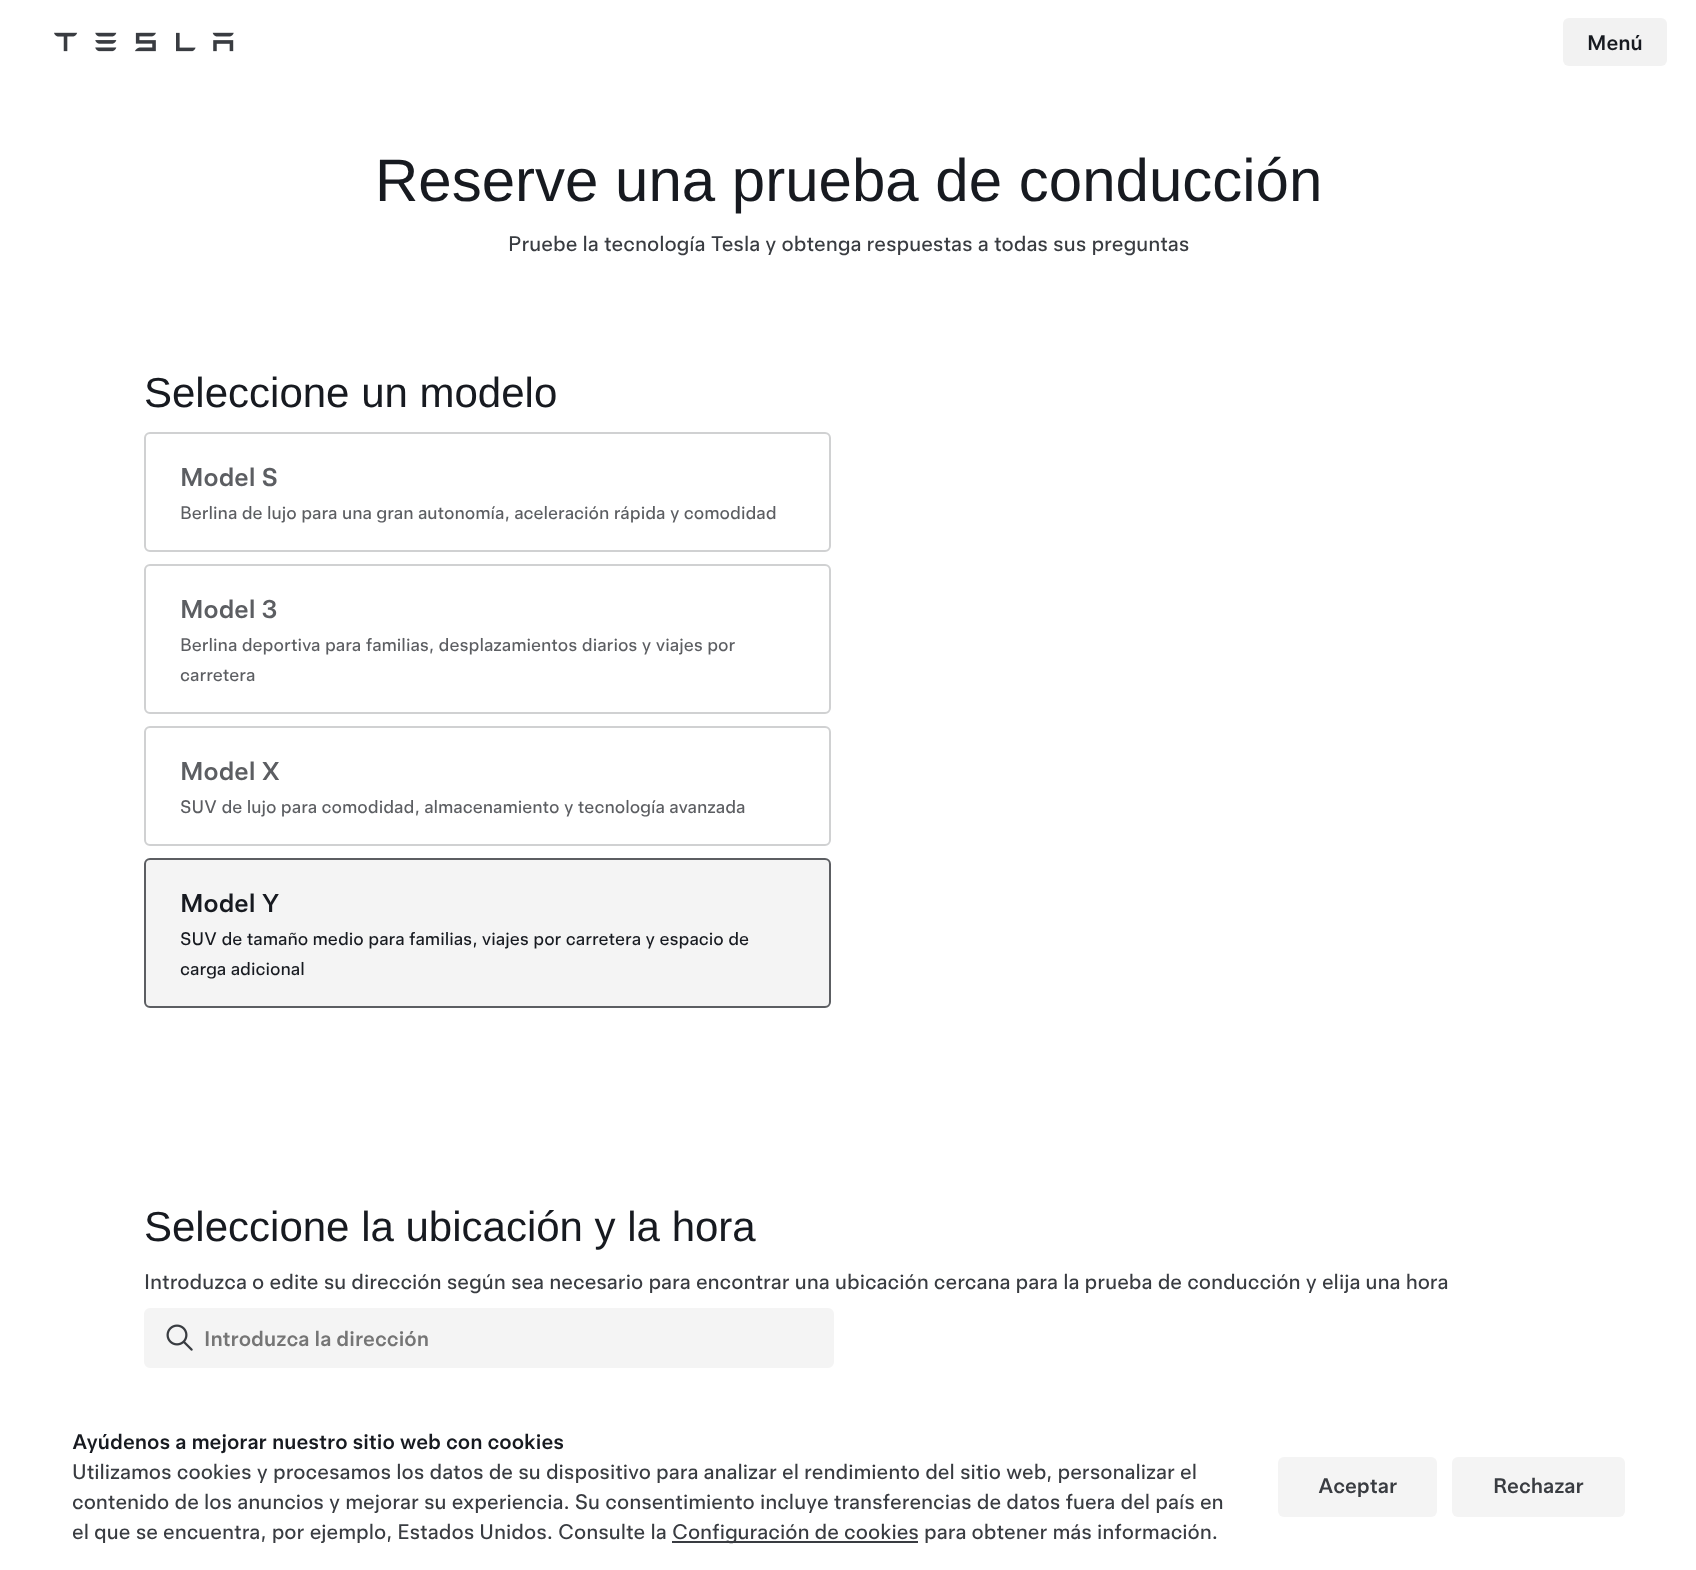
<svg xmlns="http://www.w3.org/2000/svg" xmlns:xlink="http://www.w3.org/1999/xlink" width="1696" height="1570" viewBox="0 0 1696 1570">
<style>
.cls-1{font:500 21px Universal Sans;fill:#171a20}
.cls-2{font:60px Liberation Sans;fill:#171a20}
.cls-3{font:21px Universal Sans;fill:#393c41}
.cls-4{font:42px Liberation Sans;fill:#171a20}
.cls-5{font:500 25.5px Universal Sans;fill:#5c5e62}
.cls-6{font:18px Universal Sans;fill:#5c5e62}
.cls-7{font:500 25.5px Universal Sans;fill:#171a20}
.cls-8{font:18px Universal Sans;fill:#171a20}
.cls-9{font:500 21px Universal Sans;fill:#757575}
.cls-10{font:500 21px Universal Sans;fill:#393c41}
</style>
<rect width="100%" height="100%" fill="#ffffff"/>
<image xlink:href="image0.png" x="54" y="32" width="180" height="20"/>
<rect fill="#f2f2f2" x="1563" y="18" width="104" height="48" rx="6"/>
<rect fill="none" stroke="#d0d1d2" stroke-width="2" x="145" y="433" width="685" height="118" rx="5"/>
<rect fill="none" stroke="#d0d1d2" stroke-width="2" x="145" y="565" width="685" height="148" rx="5"/>
<rect fill="none" stroke="#d0d1d2" stroke-width="2" x="145" y="727" width="685" height="118" rx="5"/>
<rect fill="#f4f4f4" stroke="#5c5e62" stroke-width="2" x="145" y="859" width="685" height="148" rx="5"/>
<rect fill="#f4f4f4" stroke="#f4f4f4" stroke-width="2" x="145" y="1309" width="688" height="58" rx="5"/>
<image xlink:href="image1.png" x="166" y="1324" width="27" height="27"/>
<rect fill="#393c41" x="672" y="1541" width="246" height="2"/>
<rect fill="#f4f4f4" x="1278" y="1457" width="159" height="60" rx="6"/>
<rect fill="#f4f4f4" x="1452" y="1457" width="173" height="60" rx="6"/>
<text class="cls-1" x="1587" y="50">Menú</text>
<text class="cls-2" x="375" y="201">Reserve una prueba de conducción</text>
<text class="cls-3" x="508" y="251">Pruebe la tecnología Tesla y obtenga respuestas a todas sus preguntas</text>
<text class="cls-4" x="144" y="407">Seleccione un modelo</text>
<text class="cls-5" x="180" y="486">Model S</text>
<text class="cls-6" x="180" y="519">Berlina de lujo para una gran autonomía, aceleración rápida y comodidad</text>
<text class="cls-5" x="180" y="618">Model 3</text>
<text class="cls-6"><tspan x="180" y="651">Berlina deportiva para familias, desplazamientos diarios y viajes por</tspan><tspan x="180" y="681">carretera</tspan></text>
<text class="cls-5" x="180" y="780">Model X</text>
<text class="cls-6" x="180" y="813">SUV de lujo para comodidad, almacenamiento y tecnología avanzada</text>
<text class="cls-7" x="180" y="912">Model Y</text>
<text class="cls-8"><tspan x="180" y="945">SUV de tamaño medio para familias, viajes por carretera y espacio de</tspan><tspan x="180" y="975">carga adicional</tspan></text>
<text class="cls-4" x="144" y="1241">Seleccione la ubicación y la hora</text>
<text class="cls-3" x="144" y="1289">Introduzca o edite su dirección según sea necesario para encontrar una ubicación cercana para la prueba de conducción y elija una hora</text>
<text class="cls-9" x="204" y="1346">Introduzca la dirección</text>
<text class="cls-1" x="72" y="1449">Ayúdenos a mejorar nuestro sitio web con cookies</text>
<text class="cls-3"><tspan x="72" y="1479">Utilizamos cookies y procesamos los datos de su dispositivo para analizar el rendimiento del sitio web, personalizar el</tspan><tspan x="72" y="1509">contenido de los anuncios y mejorar su experiencia. Su consentimiento incluye transferencias de datos fuera del país en</tspan><tspan x="72" y="1539">el que se encuentra, por ejemplo, Estados Unidos. Consulte la</tspan></text>
<text class="cls-3" x="672" y="1539">Configuración de cookies para obtener más información.</text>
<text class="cls-10" x="1318" y="1493">Aceptar</text>
<text class="cls-10" x="1493" y="1493">Rechazar</text>
</svg>
